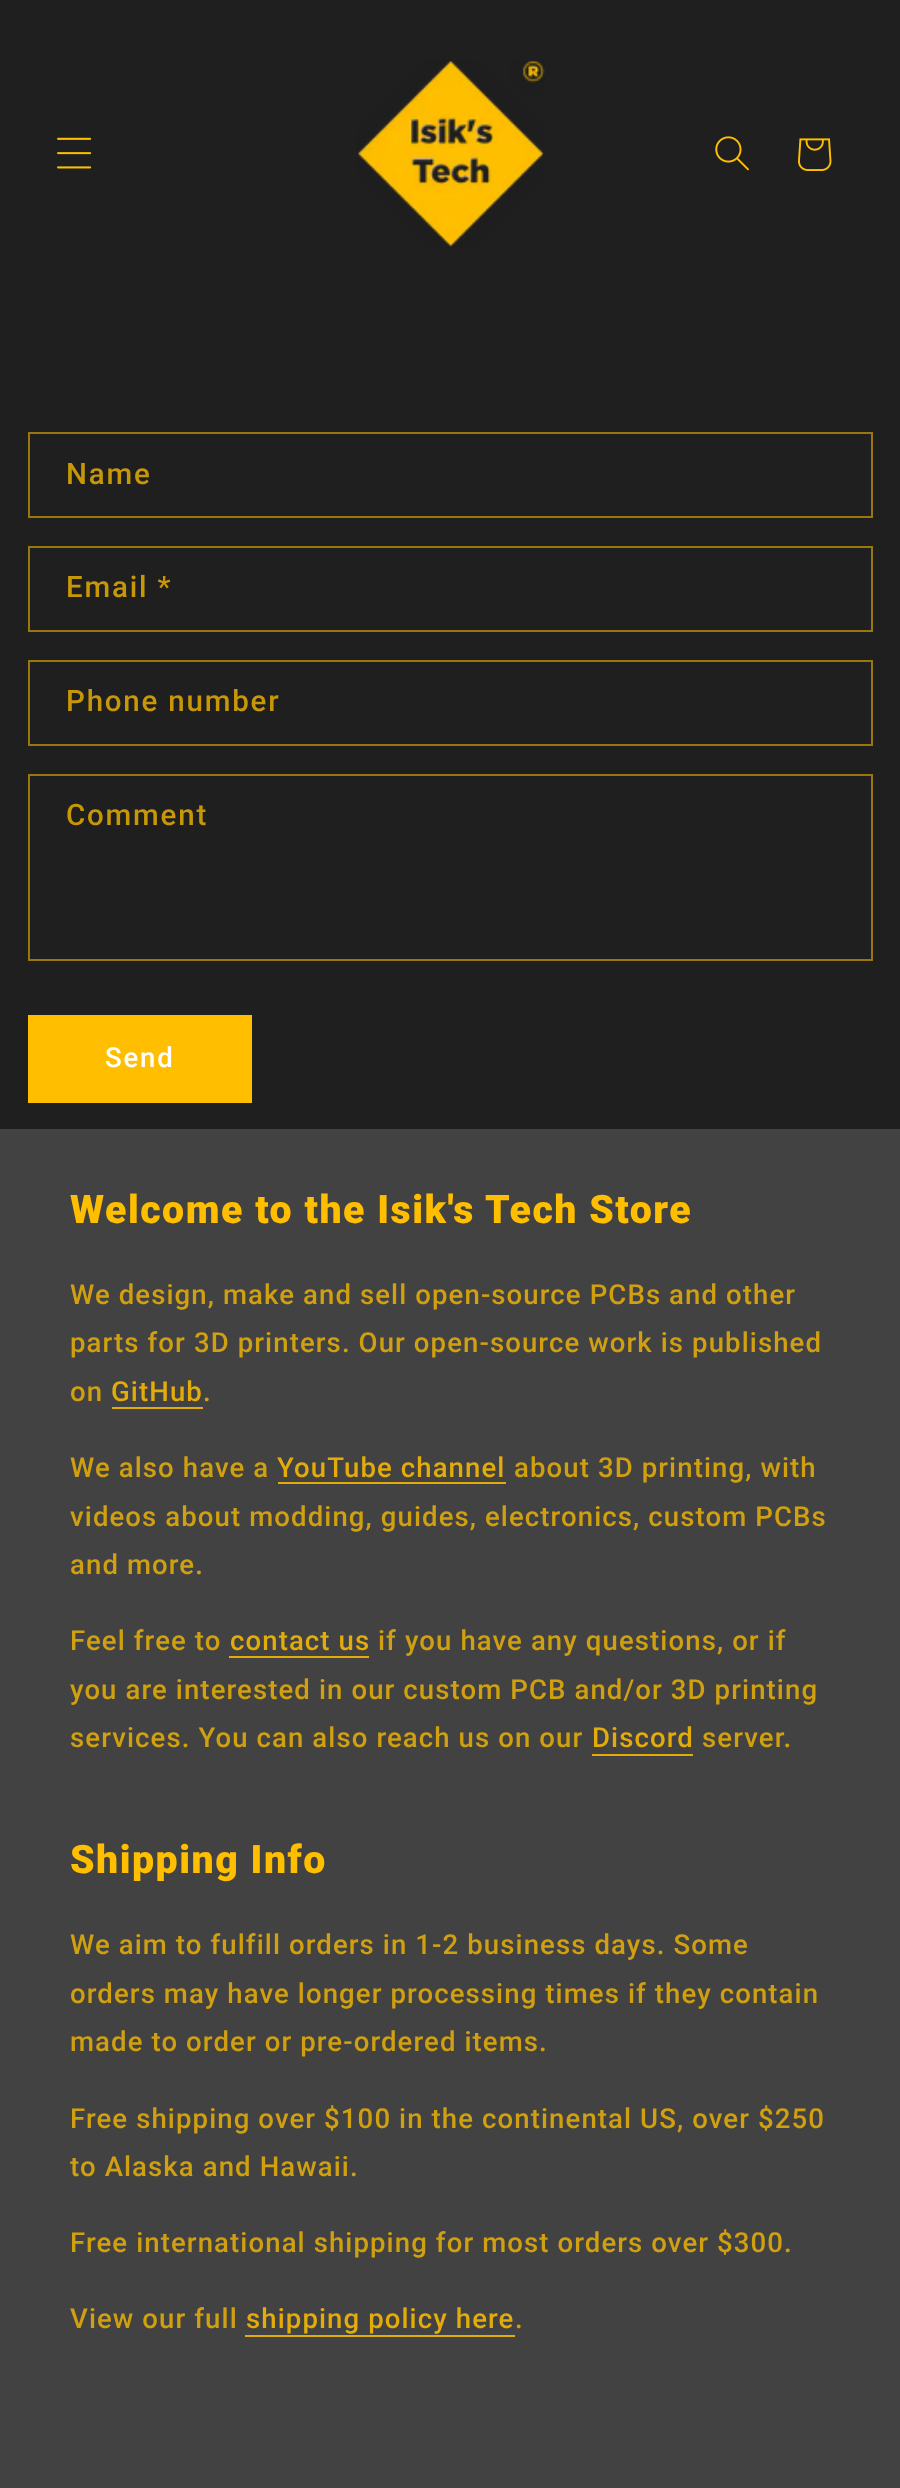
<svg xmlns="http://www.w3.org/2000/svg" xmlns:xlink="http://www.w3.org/1999/xlink" width="900" height="2488" viewBox="0 0 900 2488">
<style>
.cls-1{font:500 29.5px Roboto;letter-spacing:1.8px;fill:#c79708}
.cls-2{font:500 27.55px Roboto;letter-spacing:1.8px;fill:#ffffff}
.cls-3{font:900 39.25px Roboto;letter-spacing:1.5px;fill:#ffbf00}
.cls-4{font:500 27.55px Roboto;letter-spacing:1.1px;fill:#d0a011}
.cls-5{font:500 27.55px Roboto;letter-spacing:1.1px;fill:#e3ac0a}
</style>
<rect width="100%" height="100%" fill="#1f1f1f"/>
<image xlink:href="image0.png" x="57" y="137" width="35" height="32"/>
<image xlink:href="image1.png" x="357" y="60" width="188" height="188"/>
<image xlink:href="image2.png" x="715" y="136" width="34" height="35"/>
<image xlink:href="image3.png" x="798" y="138" width="34" height="33"/>
<rect fill="none" stroke="#9a770e" stroke-width="2" x="29" y="433" width="843" height="84"/>
<rect fill="none" stroke="#9a770e" stroke-width="2" x="29" y="547" width="843" height="84"/>
<rect fill="none" stroke="#9a770e" stroke-width="2" x="29" y="661" width="843" height="84"/>
<rect fill="none" stroke="#9a770e" stroke-width="2" x="29" y="775" width="843" height="185"/>
<rect fill="#ffbf00" x="28" y="1015" width="224" height="88"/>
<rect fill="#424242" x="0" y="1129" width="900" height="1359"/>
<rect fill="#e3ac0a" x="112" y="1407" width="91" height="2"/>
<rect fill="#e3ac0a" x="278" y="1482" width="228" height="2"/>
<rect fill="#e3ac0a" x="229" y="1656" width="140" height="2"/>
<rect fill="#e3ac0a" x="592" y="1754" width="101" height="2"/>
<rect fill="#e3ac0a" x="245" y="2335" width="270" height="2"/>
<text class="cls-1" x="66" y="484">Name</text>
<text class="cls-1" x="66" y="597">Email *</text>
<text class="cls-1" x="66" y="711">Phone number</text>
<text class="cls-1" x="66" y="825">Comment</text>
<text class="cls-2" x="105" y="1067">Send</text>
<text class="cls-3" x="70" y="1223">Welcome to the Isik's Tech Store</text>
<text class="cls-4"><tspan x="70" y="1304">We design, make and sell open-source PCBs and other</tspan><tspan x="70" y="1352">parts for 3D printers. Our open-source work is published</tspan><tspan x="70" y="1401">on</tspan></text>
<text class="cls-5" x="111" y="1401">GitHub</text>
<text class="cls-4" x="203" y="1401">.</text>
<text class="cls-4" x="70" y="1477">We also have a</text>
<text class="cls-5" x="277" y="1477">YouTube channel</text>
<text class="cls-4" x="514" y="1477">about 3D printing, with</text>
<text class="cls-4"><tspan x="70" y="1526">videos about modding, guides, electronics, custom PCBs</tspan><tspan x="70" y="1574">and more.</tspan></text>
<text class="cls-4" x="70" y="1650">Feel free to</text>
<text class="cls-5" x="230" y="1650">contact us</text>
<text class="cls-4" x="378" y="1650">if you have any questions, or if</text>
<text class="cls-4"><tspan x="70" y="1699">you are interested in our custom PCB and/or 3D printing</tspan><tspan x="70" y="1747">services. You can also reach us on our</tspan></text>
<text class="cls-5" x="592" y="1747">Discord</text>
<text class="cls-4" x="702" y="1747">server.</text>
<text class="cls-3" x="70" y="1873">Shipping Info</text>
<text class="cls-4"><tspan x="70" y="1954">We aim to fulfill orders in 1-2 business days. Some</tspan><tspan x="70" y="2003">orders may have longer processing times if they contain</tspan><tspan x="70" y="2051">made to order or pre-ordered items.</tspan></text>
<text class="cls-4"><tspan x="70" y="2128">Free shipping over $100 in the continental US, over $250</tspan><tspan x="70" y="2176">to Alaska and Hawaii.</tspan></text>
<text class="cls-4" x="70" y="2252">Free international shipping for most orders over $300.</text>
<text class="cls-4" x="70" y="2328">View our full</text>
<text class="cls-5" x="246" y="2328">shipping policy here</text>
<text class="cls-4" x="515" y="2328">.</text>
</svg>
